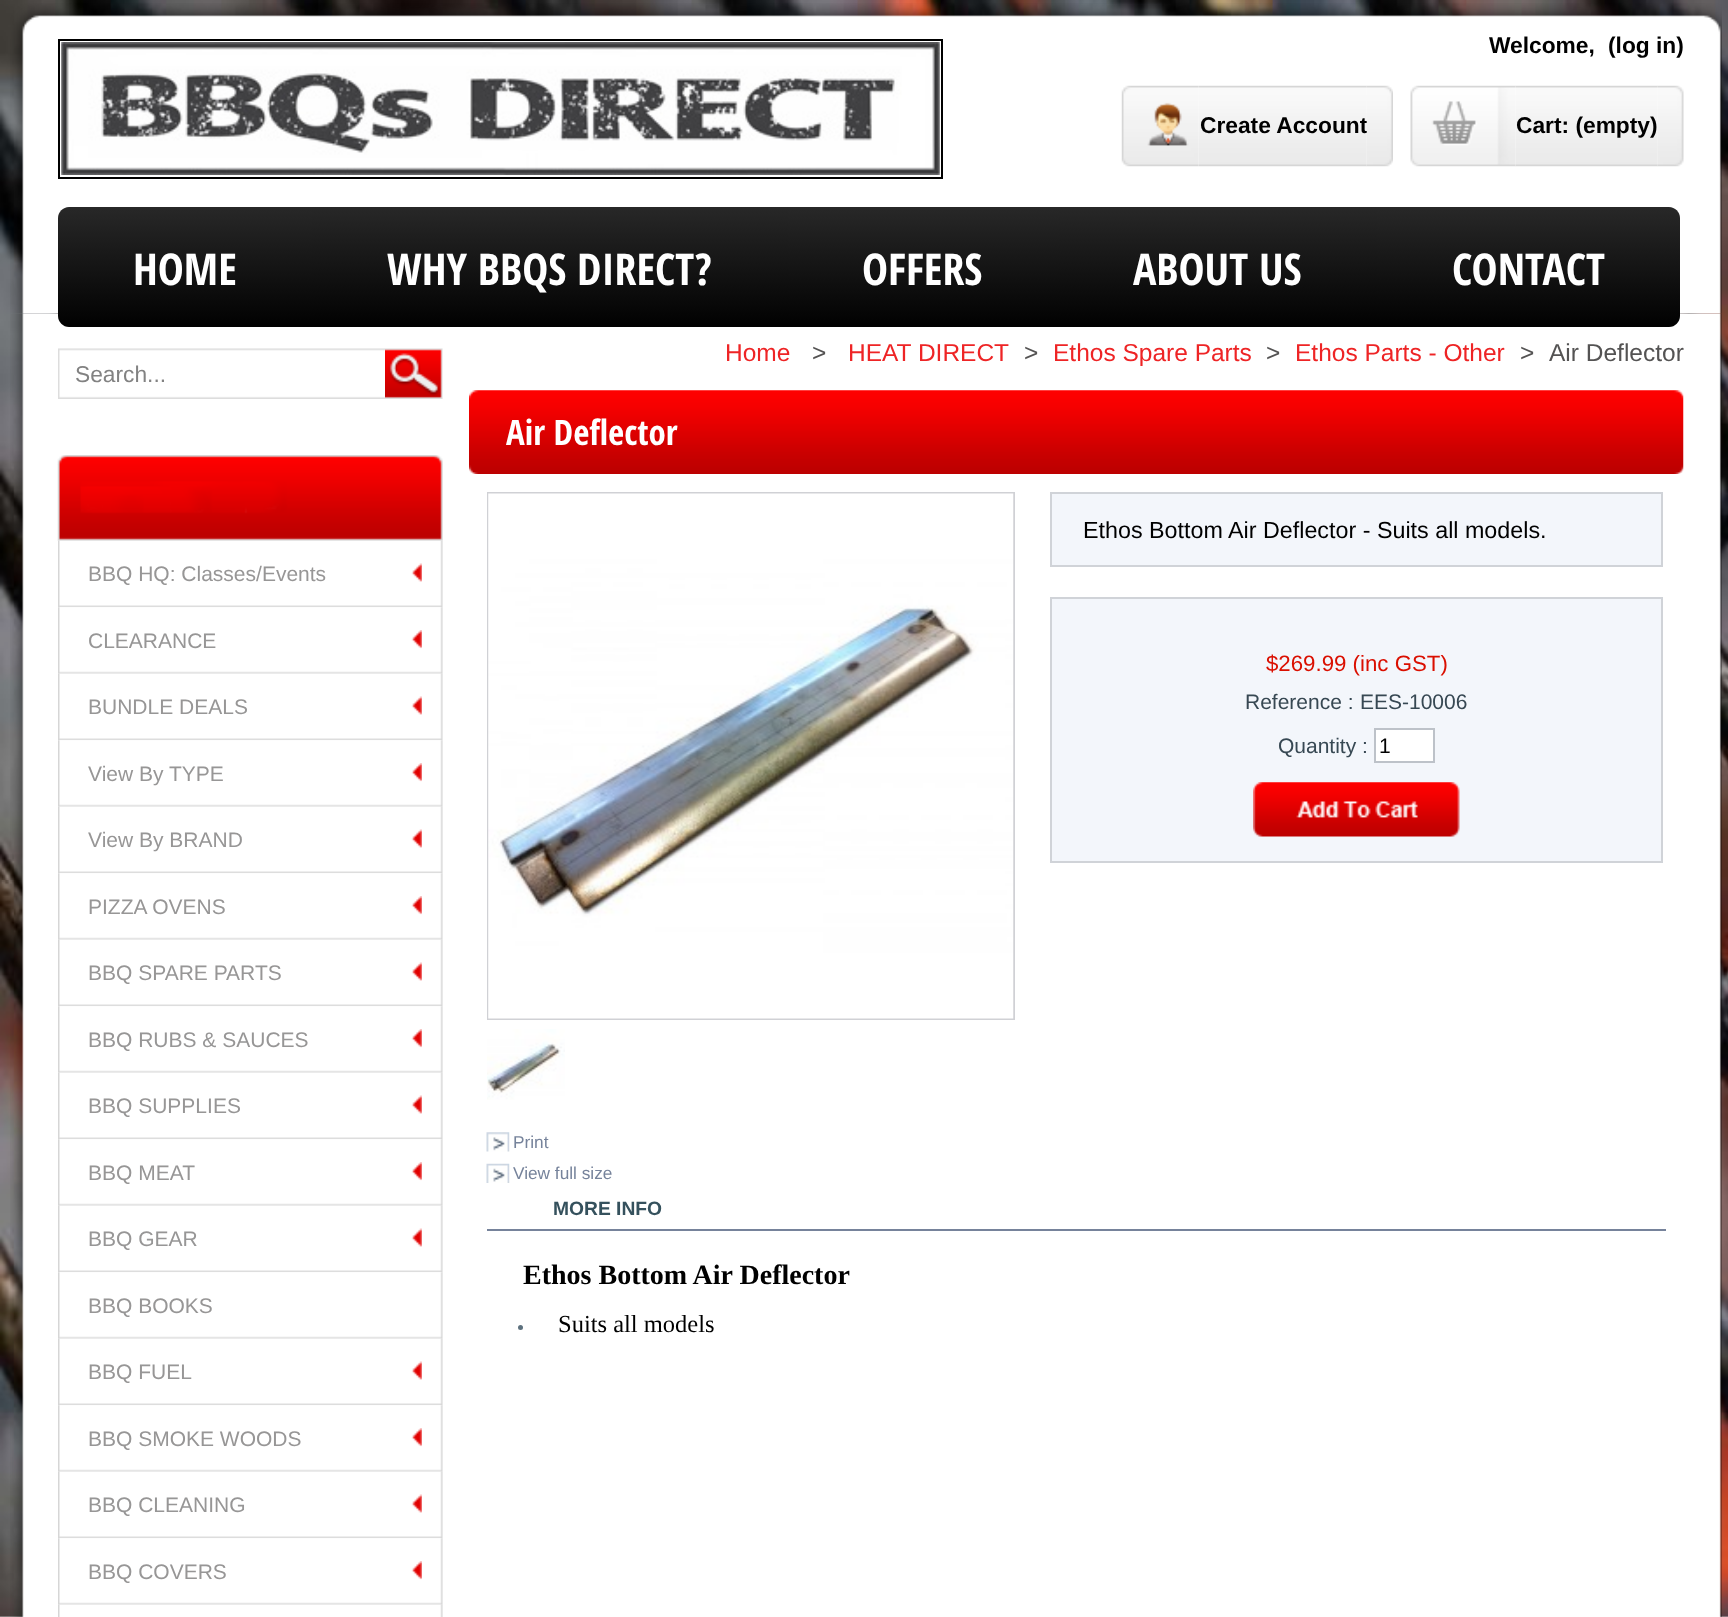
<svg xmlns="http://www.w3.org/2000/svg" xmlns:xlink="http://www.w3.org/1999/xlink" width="1728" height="1617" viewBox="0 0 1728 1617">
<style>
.cls-1{font:bold 22.75px Liberation Sans;fill:#000000}
.cls-2{font:bold 43.75px Open Sans Condensed;fill:#ffffff}
.cls-3{font:22.75px Liberation Sans;fill:#828282}
.cls-4{font:21px Liberation Sans;fill:#979696}
.cls-5{font:24.5px Liberation Sans;fill:#ee2425}
.cls-6{font:24.5px Liberation Sans;fill:#545353}
.cls-7{font:bold 35px Open Sans Condensed;fill:#ffffff}
.cls-8{font:23.3px Liberation Sans;fill:#000000}
.cls-9{font:22.25px Liberation Sans;fill:#da0f00}
.cls-10{font:21px Liberation Sans;fill:#374853}
.cls-11{font:21px Liberation Sans;fill:#000000}
.cls-12{font:17.25px Liberation Sans;fill:#76839b}
.cls-13{font:bold 19.25px Liberation Sans;fill:#35515d}
.cls-14{font:bold 28px Liberation Serif;fill:#000000}
.cls-15{font:24.5px Liberation Serif;fill:#000000}
</style>
<defs>
<linearGradient id="g1" gradientUnits="userSpaceOnUse" x1="185" y1="207" x2="185" y2="327"><stop offset="0" stop-color="#282828"/><stop offset="1" stop-color="#010101"/></linearGradient>
<linearGradient id="g2" gradientUnits="userSpaceOnUse" x1="550" y1="206" x2="550" y2="327"><stop offset="0" stop-color="#282828"/><stop offset="1" stop-color="#010101"/></linearGradient>
<linearGradient id="g3" gradientUnits="userSpaceOnUse" x1="923" y1="207" x2="923" y2="327"><stop offset="0" stop-color="#282828"/><stop offset="1" stop-color="#010101"/></linearGradient>
<linearGradient id="g4" gradientUnits="userSpaceOnUse" x1="1218" y1="206" x2="1218" y2="327"><stop offset="0" stop-color="#282828"/><stop offset="1" stop-color="#010101"/></linearGradient>
<linearGradient id="g5" gradientUnits="userSpaceOnUse" x1="1529" y1="207" x2="1529" y2="327"><stop offset="0" stop-color="#282828"/><stop offset="1" stop-color="#010101"/></linearGradient>
</defs>
<rect width="100%" height="100%" fill="#ffffff"/>
<image xlink:href="image0.png" x="0" y="0" width="1728" height="1617"/>
<image xlink:href="image11.png" x="10" y="313" width="1712" height="1304"/>
<image xlink:href="image1.png" x="10" y="3" width="1712" height="311"/>
<image xlink:href="image2.png" x="1121" y="85" width="78" height="82"/>
<image xlink:href="image3.png" x="1199" y="85" width="168" height="82"/>
<image xlink:href="image5.png" x="1410" y="85" width="106" height="82"/>
<image xlink:href="image6.png" x="1515" y="85" width="143" height="82"/>
<image xlink:href="image7.png" x="1657" y="85" width="27" height="82"/>
<path fill="url(#g1)" d="M69 207H312V327H69C63 327 58 322 58 316V218C58 212 63 207 69 207Z"/>
<rect fill="url(#g2)" x="312" y="207" width="476" height="120"/>
<rect fill="url(#g3)" x="788" y="207" width="271" height="120"/>
<rect fill="url(#g4)" x="1059" y="207" width="318" height="120"/>
<path fill="url(#g5)" d="M1377 207H1669C1675 207 1680 212 1680 218V316C1680 322 1675 327 1669 327H1377Z"/>
<image xlink:href="image8.png" x="58" y="348" width="327" height="51"/>
<image xlink:href="image9.png" x="385" y="348" width="58" height="51"/>
<rect fill="none" stroke="#000000" stroke-width="2" x="59" y="40" width="883" height="138"/>
<image xlink:href="image10.png" x="61" y="42" width="879" height="133"/>
<image xlink:href="image12.png" x="57" y="455" width="386" height="86"/>
<image xlink:href="image13.png" x="58" y="541" width="385" height="67"/>
<image xlink:href="image14.png" x="411" y="563" width="11" height="19"/>
<image xlink:href="image15.png" x="58" y="607" width="385" height="67"/>
<image xlink:href="image16.png" x="411" y="630" width="11" height="19"/>
<image xlink:href="image17.png" x="58" y="673" width="385" height="68"/>
<image xlink:href="image14.png" x="411" y="696" width="11" height="19"/>
<image xlink:href="image15.png" x="58" y="740" width="385" height="67"/>
<image xlink:href="image16.png" x="411" y="763" width="11" height="19"/>
<image xlink:href="image17.png" x="58" y="806" width="385" height="68"/>
<image xlink:href="image14.png" x="411" y="829" width="11" height="19"/>
<image xlink:href="image15.png" x="58" y="873" width="385" height="67"/>
<image xlink:href="image16.png" x="411" y="896" width="11" height="19"/>
<image xlink:href="image17.png" x="58" y="939" width="385" height="68"/>
<image xlink:href="image14.png" x="411" y="962" width="11" height="19"/>
<image xlink:href="image15.png" x="58" y="1006" width="385" height="67"/>
<image xlink:href="image16.png" x="411" y="1029" width="11" height="19"/>
<image xlink:href="image17.png" x="58" y="1072" width="385" height="68"/>
<image xlink:href="image14.png" x="411" y="1095" width="11" height="19"/>
<image xlink:href="image15.png" x="58" y="1139" width="385" height="67"/>
<image xlink:href="image16.png" x="411" y="1162" width="11" height="19"/>
<image xlink:href="image17.png" x="58" y="1205" width="385" height="68"/>
<image xlink:href="image14.png" x="411" y="1228" width="11" height="19"/>
<image xlink:href="image15.png" x="58" y="1272" width="385" height="67"/>
<image xlink:href="image17.png" x="58" y="1338" width="385" height="68"/>
<image xlink:href="image14.png" x="411" y="1361" width="11" height="19"/>
<image xlink:href="image15.png" x="58" y="1405" width="385" height="67"/>
<image xlink:href="image16.png" x="411" y="1428" width="11" height="19"/>
<image xlink:href="image17.png" x="58" y="1471" width="385" height="68"/>
<image xlink:href="image14.png" x="411" y="1494" width="11" height="19"/>
<image xlink:href="image15.png" x="58" y="1538" width="385" height="67"/>
<image xlink:href="image16.png" x="411" y="1561" width="11" height="19"/>
<image xlink:href="image18.png" x="58" y="1604" width="385" height="13"/>
<image xlink:href="image19.png" x="469" y="390" width="1215" height="84"/>
<rect fill="#f3f6fb" stroke="#d0d3d8" stroke-width="2" x="1051" y="493" width="611" height="73"/>
<rect fill="#f3f6fb" stroke="#d0d3d8" stroke-width="2" x="1051" y="598" width="611" height="264"/>
<rect fill="#ffffff" stroke="#bdc2c9" stroke-width="2" x="1375" y="729" width="59" height="33"/>
<image xlink:href="image20.png" x="1253" y="782" width="207" height="55"/>
<rect fill="none" stroke="#d0d1d5" stroke-width="2" x="488" y="493" width="526" height="526"/>
<image xlink:href="image21.png" x="488" y="493" width="526" height="526"/>
<image xlink:href="image22.png" x="487" y="1029" width="78" height="71"/>
<image xlink:href="image23.png" x="486" y="1132" width="24" height="20"/>
<image xlink:href="image24.png" x="486" y="1163" width="24" height="20"/>
<rect fill="#76839b" x="487" y="1229" width="1179" height="2"/>
<circle fill="#5d717e" cx="520.5" cy="1327.5" r="2.5"/>
<text class="cls-1" x="1489" y="53">Welcome,</text>
<text class="cls-1" x="1608" y="53">(log in)</text>
<text class="cls-1" x="1200" y="133">Create Account</text>
<image xlink:href="image4.png" x="1366" y="85" width="27" height="82"/>
<text class="cls-1" x="1516" y="133">Cart: (empty)</text>
<text class="cls-2" x="133" y="285">HOME</text>
<text class="cls-2" x="387" y="285">WHY BBQS DIRECT?</text>
<text class="cls-2" x="862" y="285">OFFERS</text>
<text class="cls-2" x="1133" y="285">ABOUT US</text>
<text class="cls-2" x="1452" y="285">CONTACT</text>
<text class="cls-3" x="75" y="382">Search...</text>
<text class="cls-4" x="88" y="581">BBQ HQ: Classes/Events</text>
<text class="cls-4" x="88" y="648">CLEARANCE</text>
<text class="cls-4" x="88" y="714">BUNDLE DEALS</text>
<text class="cls-4" x="88" y="781">View By TYPE</text>
<text class="cls-4" x="88" y="847">View By BRAND</text>
<text class="cls-4" x="88" y="914">PIZZA OVENS</text>
<text class="cls-4" x="88" y="980">BBQ SPARE PARTS</text>
<text class="cls-4" x="88" y="1047">BBQ RUBS &amp; SAUCES</text>
<text class="cls-4" x="88" y="1113">BBQ SUPPLIES</text>
<text class="cls-4" x="88" y="1180">BBQ MEAT</text>
<text class="cls-4" x="88" y="1246">BBQ GEAR</text>
<text class="cls-4" x="88" y="1313">BBQ BOOKS</text>
<text class="cls-4" x="88" y="1379">BBQ FUEL</text>
<text class="cls-4" x="88" y="1446">BBQ SMOKE WOODS</text>
<text class="cls-4" x="88" y="1512">BBQ CLEANING</text>
<text class="cls-4" x="88" y="1579">BBQ COVERS</text>
<text class="cls-5" x="725" y="361">Home</text>
<text class="cls-6" x="812" y="361">&gt;</text>
<text class="cls-5" x="848" y="361">HEAT DIRECT</text>
<text class="cls-6" x="1024" y="361">&gt;</text>
<text class="cls-5" x="1053" y="361">Ethos Spare Parts</text>
<text class="cls-6" x="1266" y="361">&gt;</text>
<text class="cls-5" x="1295" y="361">Ethos Parts - Other</text>
<text class="cls-6" x="1520" y="361">&gt;</text>
<text class="cls-6" x="1549" y="361">Air Deflector</text>
<text class="cls-7" x="506" y="445">Air Deflector</text>
<text class="cls-8" x="1083" y="538">Ethos Bottom Air Deflector - Suits all models.</text>
<text class="cls-9" x="1266" y="671">$269.99 (inc GST)</text>
<text class="cls-10" x="1245" y="709">Reference :</text>
<text class="cls-10" x="1360" y="709">EES-10006</text>
<text class="cls-10" x="1278" y="753">Quantity :</text>
<text class="cls-11" x="1379" y="753">1</text>
<text class="cls-12"><tspan x="513" y="1148">Print</tspan><tspan x="513" y="1179">View full size</tspan></text>
<text class="cls-13" x="553" y="1215">MORE INFO</text>
<text class="cls-14" x="523" y="1284">Ethos Bottom Air Deflector</text>
<text class="cls-15" x="558" y="1332">Suits all models</text>
</svg>
